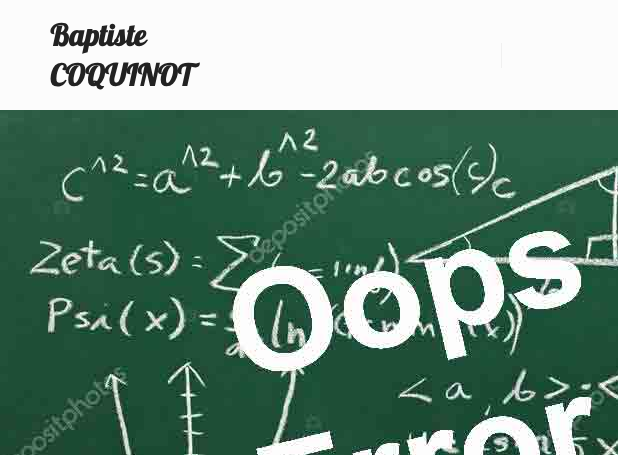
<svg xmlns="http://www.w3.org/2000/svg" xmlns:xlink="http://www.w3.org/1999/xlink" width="618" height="455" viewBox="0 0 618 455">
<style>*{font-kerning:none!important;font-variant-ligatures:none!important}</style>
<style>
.cls-1{font:bold 30px Lobster;fill:#222222}
</style>
<rect width="100%" height="100%" fill="#ffffff"/>
<rect fill="#fcfcfc" x="0" y="0" width="618" height="110"/>
<rect fill="#f0f0f0" x="501" y="43" width="1" height="25"/>
<image xlink:href="image0.png" x="0" y="110" width="618" height="345"/>
<text class="cls-1"><tspan x="50" y="46">Baptiste</tspan><tspan x="50" y="86">COQUINOT</tspan></text>
</svg>
